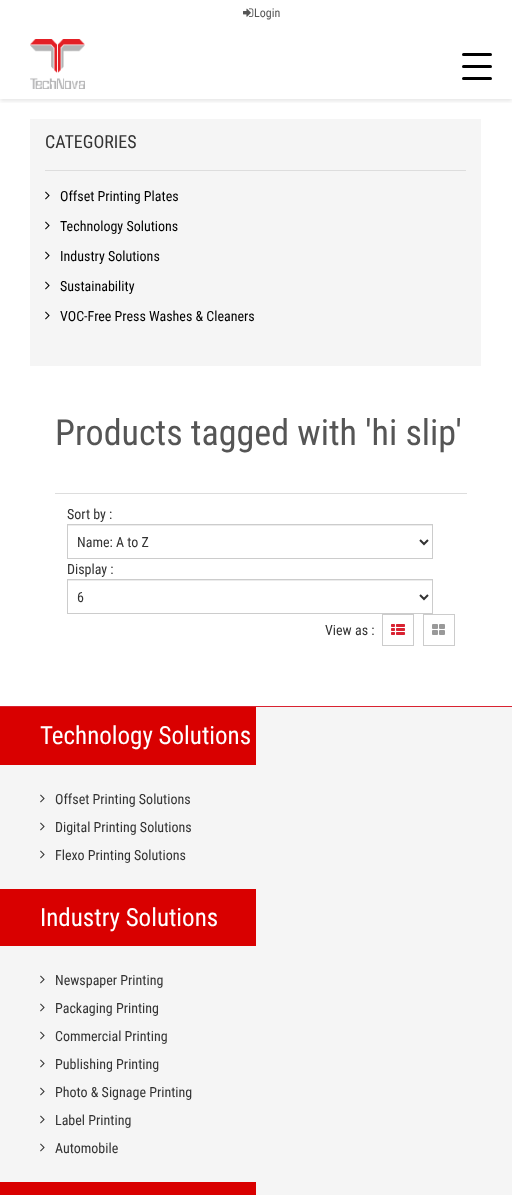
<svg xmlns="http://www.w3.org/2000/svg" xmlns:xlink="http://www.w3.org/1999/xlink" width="512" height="1195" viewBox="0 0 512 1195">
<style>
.cls-1{font:12px Roboto Condensed;fill:#555555}
.cls-2{font:18px Roboto Condensed;fill:#333333}
.cls-3{font:14px Roboto Condensed;fill:#000000}
.cls-4{font:36px Roboto Condensed;fill:#555555}
.cls-5{font:14px Roboto Condensed;fill:#333333}
.cls-6{font:25px Roboto Condensed;fill:#ffffff}
</style>
<defs>
<clipPath id="clip1"><rect x="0" y="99" width="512" height="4"/></clipPath>
</defs>
<rect width="100%" height="100%" fill="#ffffff"/>
<g clip-path="url(#clip1)">
<rect fill="#000000" fill-opacity="0.1" filter="blur(2px)" x="0" y="2" width="512" height="99"/>
</g>
<image xlink:href="image0.png" x="243" y="8" width="11" height="9"/>
<image xlink:href="image1.png" x="30" y="39" width="55" height="50"/>
<rect fill="#000000" x="462" y="53" width="30" height="3" rx="1.5"/>
<rect fill="#000000" x="462" y="65" width="30" height="3" rx="1.5"/>
<rect fill="#000000" x="462" y="77" width="30" height="3" rx="1.5"/>
<rect fill="#f5f5f5" x="30" y="119" width="451" height="247"/>
<rect fill="#dddddd" x="45" y="170" width="421" height="1"/>
<image xlink:href="image2.png" x="45" y="191" width="5" height="9"/>
<image xlink:href="image2.png" x="45" y="221" width="5" height="9"/>
<image xlink:href="image2.png" x="45" y="251" width="5" height="9"/>
<image xlink:href="image2.png" x="45" y="281" width="5" height="9"/>
<image xlink:href="image2.png" x="45" y="311" width="5" height="9"/>
<rect fill="#dddddd" x="55" y="493" width="412" height="1"/>
<rect fill="#ececec" x="68" y="525" width="364" height="1"/>
<rect fill="none" stroke="#cccccc" x="67.5" y="524.5" width="365" height="34"/>
<path fill="none" stroke="#333333" stroke-width="2" d="M420 540L424 544L428 540"/>
<rect fill="#ececec" x="68" y="580" width="364" height="1"/>
<rect fill="none" stroke="#cccccc" x="67.5" y="579.5" width="365" height="34"/>
<path fill="none" stroke="#333333" stroke-width="2" d="M420 595L424 599L428 595"/>
<rect fill="none" stroke="#cccccc" x="382.5" y="614.5" width="31" height="31"/>
<image xlink:href="image3.png" x="391" y="624" width="14" height="11"/>
<rect fill="none" stroke="#cccccc" x="423.5" y="614.5" width="31" height="31"/>
<image xlink:href="image4.png" x="432" y="624" width="13" height="11"/>
<rect fill="#f5f5f5" x="0" y="707" width="512" height="488"/>
<rect fill="#d92231" x="0" y="706" width="512" height="1"/>
<rect fill="#d90000" x="0" y="707" width="256" height="58"/>
<image xlink:href="image5.png" x="40" y="794" width="5" height="9"/>
<image xlink:href="image5.png" x="40" y="822" width="5" height="9"/>
<image xlink:href="image5.png" x="40" y="850" width="5" height="9"/>
<rect fill="#d90000" x="0" y="889" width="256" height="57"/>
<image xlink:href="image5.png" x="40" y="975" width="5" height="9"/>
<image xlink:href="image5.png" x="40" y="1003" width="5" height="9"/>
<image xlink:href="image5.png" x="40" y="1031" width="5" height="9"/>
<image xlink:href="image5.png" x="40" y="1059" width="5" height="9"/>
<image xlink:href="image5.png" x="40" y="1087" width="5" height="9"/>
<image xlink:href="image5.png" x="40" y="1115" width="5" height="9"/>
<image xlink:href="image5.png" x="40" y="1143" width="5" height="9"/>
<rect fill="#d90000" x="0" y="1182" width="256" height="13"/>
<text class="cls-1" x="254" y="17">Login</text>
<text class="cls-2" x="45" y="148">CATEGORIES</text>
<text class="cls-3" x="60" y="201">Offset Printing Plates</text>
<text class="cls-3" x="60" y="231">Technology Solutions</text>
<text class="cls-3" x="60" y="261">Industry Solutions</text>
<text class="cls-3" x="60" y="291">Sustainability</text>
<text class="cls-3" x="60" y="321">VOC-Free Press Washes &amp; Cleaners</text>
<text class="cls-4" x="55" y="445">Products tagged with 'hi slip'</text>
<text class="cls-5" x="67" y="519">Sort by :</text>
<text class="cls-5" x="77" y="547">Name: A to Z</text>
<text class="cls-5" x="67" y="574">Display :</text>
<text class="cls-5" x="77" y="602">6</text>
<text class="cls-5" x="325" y="635">View as :</text>
<text class="cls-6" x="40" y="744">Technology Solutions</text>
<text class="cls-5" x="55" y="804">Offset Printing Solutions</text>
<text class="cls-5" x="55" y="832">Digital Printing Solutions</text>
<text class="cls-5" x="55" y="860">Flexo Printing Solutions</text>
<text class="cls-6" x="40" y="926">Industry Solutions</text>
<text class="cls-5" x="55" y="985">Newspaper Printing</text>
<text class="cls-5" x="55" y="1013">Packaging Printing</text>
<text class="cls-5" x="55" y="1041">Commercial Printing</text>
<text class="cls-5" x="55" y="1069">Publishing Printing</text>
<text class="cls-5" x="55" y="1097">Photo &amp; Signage Printing</text>
<text class="cls-5" x="55" y="1125">Label Printing</text>
<text class="cls-5" x="55" y="1153">Automobile</text>
</svg>
